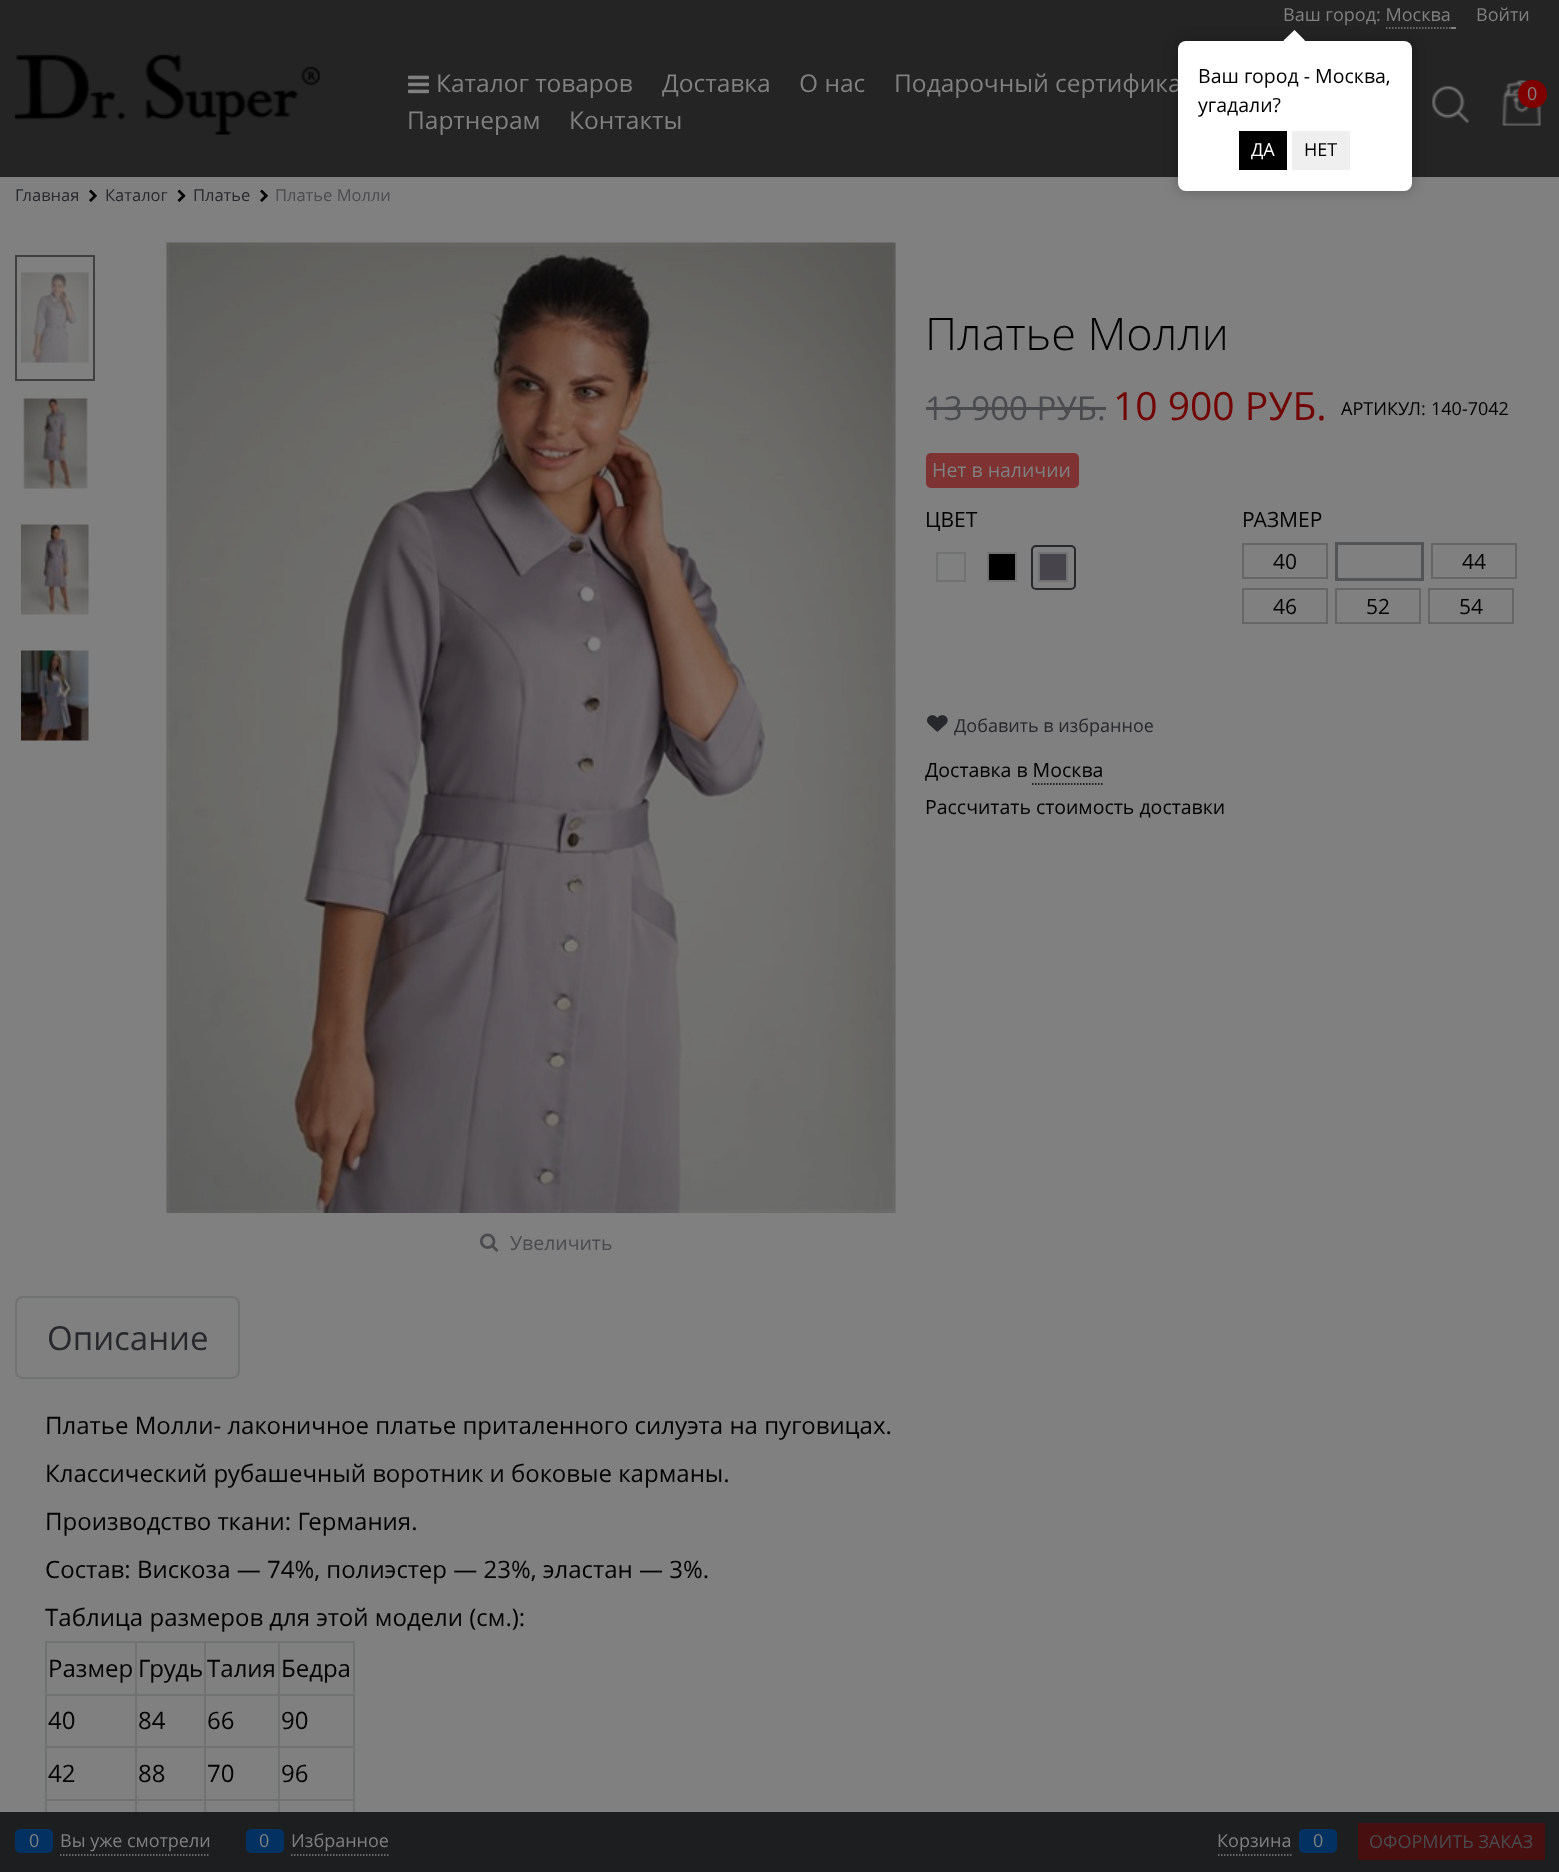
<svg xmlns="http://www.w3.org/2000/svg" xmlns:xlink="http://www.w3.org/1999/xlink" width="1559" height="1872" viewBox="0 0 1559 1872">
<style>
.cls-1{font:18px Open Sans;fill:#808080}
.cls-2{font:24.5px Open Sans;fill:#808080}
.cls-3{font:16.5px Open Sans;fill:#26282c}
.cls-4{font:16.5px Open Sans;fill:#4a4b4e}
.cls-5{font:300 45px Open Sans;fill:#000000}
.cls-6{font:33px Open Sans;fill:#4a4b4e}
.cls-7{font:39px Open Sans;fill:#710505}
.cls-8{font:18px Open Sans;fill:#000000}
.cls-9{font:19.5px Open Sans;fill:#808080}
.cls-10{font:21px Open Sans;fill:#000000}
.cls-11{font:18px Open Sans;fill:#26282c}
.cls-12{font:19.5px Open Sans;fill:#000000}
.cls-13{font:19.5px Open Sans;fill:#4a4b4e}
.cls-14{font:33px Open Sans;fill:#26282c}
.cls-15{font:24px Open Sans;fill:#000000}
.cls-16{font:18px Open Sans;fill:#4a4b4e}
.cls-17{font:18px Open Sans;fill:#ffffff}
</style>
<defs>
<clipPath id="clip1"><rect x="1178" y="27" width="234" height="14"/></clipPath>
</defs>
<rect width="100%" height="100%" fill="#808080"/>
<rect fill="#242424" x="0" y="0" width="1559" height="177"/>
<path fill="none" stroke="#808080" stroke-width="1.5" stroke-dasharray="1.5 1.5" d="M1386 28H1450.5"/>
<rect fill="#808080" x="1451" y="27" width="5" height="2"/>
<image xlink:href="image0.png" x="15" y="54" width="305" height="81"/>
<image xlink:href="image1.png" x="408" y="75" width="21" height="19"/>
<image xlink:href="image2.png" x="1432" y="86" width="37" height="37"/>
<image xlink:href="image3.png" x="1502" y="80" width="39" height="46"/>
<rect fill="#800000" x="1518" y="80" width="29" height="28" rx="14"/>
<image xlink:href="image4.png" x="89" y="189" width="8" height="13"/>
<image xlink:href="image5.png" x="177" y="189" width="9" height="13"/>
<image xlink:href="image4.png" x="260" y="189" width="8" height="13"/>
<rect fill="#4a4b4e" x="926" y="407" width="180" height="3"/>
<rect fill="#7e3232" x="926" y="453" width="153" height="35" rx="5"/>
<rect fill="none" stroke="#717272" stroke-width="2" x="937" y="553" width="28" height="28"/>
<rect fill="#000000" stroke="#717272" stroke-width="2" x="988" y="553" width="28" height="28"/>
<rect fill="none" stroke="#26282c" stroke-width="2" x="1032" y="546" width="43" height="43" rx="4"/>
<rect fill="#48444c" stroke="#717272" stroke-width="2" x="1039" y="553" width="28" height="28"/>
<rect fill="none" stroke="#666666" stroke-width="2" x="1243" y="544" width="84" height="34"/>
<rect fill="none" stroke="#535456" stroke-width="3" x="1336.5" y="543.5" width="86" height="36"/>
<rect fill="none" stroke="#666666" stroke-width="2" x="1432" y="544" width="84" height="34"/>
<rect fill="none" stroke="#666666" stroke-width="2" x="1243" y="589" width="84" height="34"/>
<rect fill="none" stroke="#666666" stroke-width="2" x="1336" y="589" width="84" height="34"/>
<rect fill="none" stroke="#666666" stroke-width="2" x="1429" y="589" width="84" height="34"/>
<image xlink:href="image6.png" x="927" y="715" width="21" height="17"/>
<path fill="none" stroke="#000000" stroke-width="1.5" stroke-dasharray="1.5 1.5" d="M1032 784H1104"/>
<rect fill="none" stroke="#404040" stroke-width="2" x="16" y="256" width="78" height="124"/>
<image xlink:href="image7.png" x="21" y="272" width="68" height="91"/>
<image xlink:href="image8.png" x="23" y="398" width="65" height="91"/>
<image xlink:href="image9.png" x="21" y="524" width="68" height="91"/>
<image xlink:href="image10.png" x="21" y="650" width="68" height="91"/>
<image xlink:href="image11.png" x="166" y="242" width="730" height="971"/>
<image xlink:href="image12.png" x="480" y="1233" width="19" height="19"/>
<rect fill="none" stroke="#717272" stroke-width="2" x="16" y="1297" width="223" height="81" rx="7"/>
<rect fill="#717272" x="278" y="1641" width="76" height="2"/>
<rect fill="#717272" x="278" y="1694" width="76" height="2"/>
<rect fill="#717272" x="278" y="1746" width="76" height="2"/>
<rect fill="#717272" x="278" y="1799" width="76" height="2"/>
<rect fill="#717272" x="278" y="1799" width="2" height="13"/>
<rect fill="#717272" x="204" y="1799" width="75" height="2"/>
<rect fill="#717272" x="278" y="1746" width="2" height="54"/>
<rect fill="#717272" x="204" y="1746" width="75" height="2"/>
<rect fill="#717272" x="278" y="1694" width="2" height="54"/>
<rect fill="#717272" x="204" y="1694" width="75" height="2"/>
<rect fill="#717272" x="278" y="1641" width="2" height="54"/>
<rect fill="#717272" x="204" y="1641" width="75" height="2"/>
<rect fill="#717272" x="204" y="1799" width="2" height="13"/>
<rect fill="#717272" x="135" y="1799" width="71" height="2"/>
<rect fill="#717272" x="204" y="1746" width="2" height="54"/>
<rect fill="#717272" x="135" y="1746" width="71" height="2"/>
<rect fill="#717272" x="204" y="1694" width="2" height="54"/>
<rect fill="#717272" x="135" y="1694" width="71" height="2"/>
<rect fill="#717272" x="204" y="1641" width="2" height="54"/>
<rect fill="#717272" x="135" y="1641" width="71" height="2"/>
<rect fill="#717272" x="135" y="1799" width="2" height="13"/>
<rect fill="#717272" x="45" y="1799" width="92" height="2"/>
<rect fill="#717272" x="135" y="1746" width="2" height="54"/>
<rect fill="#717272" x="45" y="1746" width="92" height="2"/>
<rect fill="#717272" x="135" y="1694" width="2" height="54"/>
<rect fill="#717272" x="45" y="1694" width="92" height="2"/>
<rect fill="#717272" x="135" y="1641" width="2" height="54"/>
<rect fill="#717272" x="45" y="1641" width="92" height="2"/>
<rect fill="#717272" x="45" y="1799" width="2" height="13"/>
<rect fill="#717272" x="45" y="1746" width="2" height="54"/>
<rect fill="#717272" x="45" y="1694" width="2" height="54"/>
<rect fill="#717272" x="45" y="1641" width="2" height="54"/>
<rect fill="#717272" x="353" y="1799" width="2" height="13"/>
<rect fill="#717272" x="353" y="1746" width="2" height="54"/>
<rect fill="#717272" x="353" y="1694" width="2" height="54"/>
<rect fill="#717272" x="353" y="1641" width="2" height="54"/>
<rect fill="#1c1e20" x="0" y="1812" width="1559" height="60"/>
<path fill="none" stroke="#808080" stroke-width="1.5" stroke-dasharray="1.5 1.5" d="M60 1855H210"/>
<rect fill="#033161" x="15" y="1829" width="38" height="24" rx="5"/>
<path fill="none" stroke="#808080" stroke-width="1.5" stroke-dasharray="1.5 1.5" d="M291 1855H388.5"/>
<rect fill="#033161" x="246" y="1829" width="38" height="24" rx="5"/>
<path fill="none" stroke="#808080" stroke-width="1.5" stroke-dasharray="1.5 1.5" d="M1218 1855H1291.5"/>
<rect fill="#033161" x="1299" y="1829" width="38" height="24" rx="5"/>
<rect fill="#470f10" x="1358" y="1823" width="187" height="37"/>
<rect fill="#000000" fill-opacity="0.25" filter="blur(7px)" x="1178" y="41" width="234" height="150" rx="8"/>
<g clip-path="url(#clip1)">
<path fill="#ffffff" d="M1294.5 30L1305 40.5L1294.5 51L1283.5 40.5Z"/>
</g>
<text class="cls-1" x="1283" y="21">Ваш город: Москва</text>
<text class="cls-1" x="1476" y="21">Войти</text>
<text class="cls-2" x="436" y="92">Каталог товаров</text>
<text class="cls-2" x="662" y="92">Доставка</text>
<text class="cls-2" x="799" y="92">О нас</text>
<text class="cls-2" x="894" y="92">Подарочный сертифика</text>
<text class="cls-2" x="407" y="129">Партнерам</text>
<text class="cls-2" x="569" y="129">Контакты</text>
<text class="cls-1" x="1527" y="100">0</text>
<text class="cls-3" x="15" y="201">Главная</text>
<text class="cls-3" x="105" y="201">Каталог</text>
<text class="cls-3" x="193" y="201">Платье</text>
<text class="cls-4" x="275" y="201">Платье Молли</text>
<text class="cls-5" x="925" y="350">Платье Молли</text>
<text class="cls-6" x="925" y="420">13 900 РУБ.</text>
<text class="cls-7" x="1113" y="420">10 900 РУБ.</text>
<text class="cls-8" x="1341" y="415">АРТИКУЛ:</text>
<text class="cls-8" x="1431" y="415">140-7042</text>
<text class="cls-9" x="932" y="477">Нет в наличии</text>
<text class="cls-10" x="925" y="527">ЦВЕТ</text>
<text class="cls-10" x="1242" y="527">РАЗМЕР</text>
<text class="cls-10" x="1273" y="569">40</text>
<text class="cls-10" x="1462" y="569">44</text>
<text class="cls-10" x="1273" y="614">46</text>
<text class="cls-10" x="1366" y="614">52</text>
<text class="cls-10" x="1459" y="614">54</text>
<text class="cls-11" x="954" y="732">Добавить в избранное</text>
<text class="cls-12"><tspan x="925" y="777">Доставка в Москва</tspan><tspan x="925" y="814">Рассчитать стоимость доставки</tspan></text>
<text class="cls-13" x="510" y="1250">Увеличить</text>
<text class="cls-14" x="47" y="1350">Описание</text>
<text class="cls-15" x="45" y="1434">Платье Молли- лаконичное платье приталенного силуэта на пуговицах.</text>
<text class="cls-15" x="45" y="1482">Классический рубашечный воротник и боковые карманы.</text>
<text class="cls-15" x="45" y="1530">Производство ткани: Германия.</text>
<text class="cls-15" x="45" y="1578">Состав: Вискоза — 74%, полиэстер — 23%, эластан — 3%.</text>
<text class="cls-15" x="45" y="1626">Таблица размеров для этой модели (см.):</text>
<text class="cls-15" x="48" y="1677">Размер</text>
<text class="cls-15" x="138" y="1677">Грудь</text>
<text class="cls-15" x="207" y="1677">Талия</text>
<text class="cls-15" x="281" y="1677">Бедра</text>
<text class="cls-15" x="48" y="1729">40</text>
<text class="cls-15" x="138" y="1729">84</text>
<text class="cls-15" x="207" y="1729">66</text>
<text class="cls-15" x="281" y="1729">90</text>
<text class="cls-15" x="48" y="1782">42</text>
<text class="cls-15" x="138" y="1782">88</text>
<text class="cls-15" x="207" y="1782">70</text>
<text class="cls-15" x="281" y="1782">96</text>
<text class="cls-1" x="29" y="1847">0</text>
<text class="cls-1" x="60" y="1847">Вы уже смотрели</text>
<text class="cls-1" x="259" y="1847">0</text>
<text class="cls-1" x="291" y="1847">Избранное</text>
<text class="cls-1" x="1217" y="1847">Корзина</text>
<text class="cls-1" x="1313" y="1847">0</text>
<text class="cls-16" x="1369" y="1848">ОФОРМИТЬ ЗАКАЗ</text>
<rect fill="#ffffff" x="1178" y="41" width="234" height="150" rx="8"/>
<text class="cls-12"><tspan x="1198" y="83">Ваш город - Москва,</tspan><tspan x="1198" y="112">угадали?</tspan></text>
<rect fill="#000000" x="1239" y="131" width="48" height="39"/>
<text class="cls-17" x="1251" y="156">ДА</text>
<rect fill="#efefef" x="1292" y="131" width="58" height="39"/>
<text class="cls-8" x="1304" y="156">НЕТ</text>
</svg>
